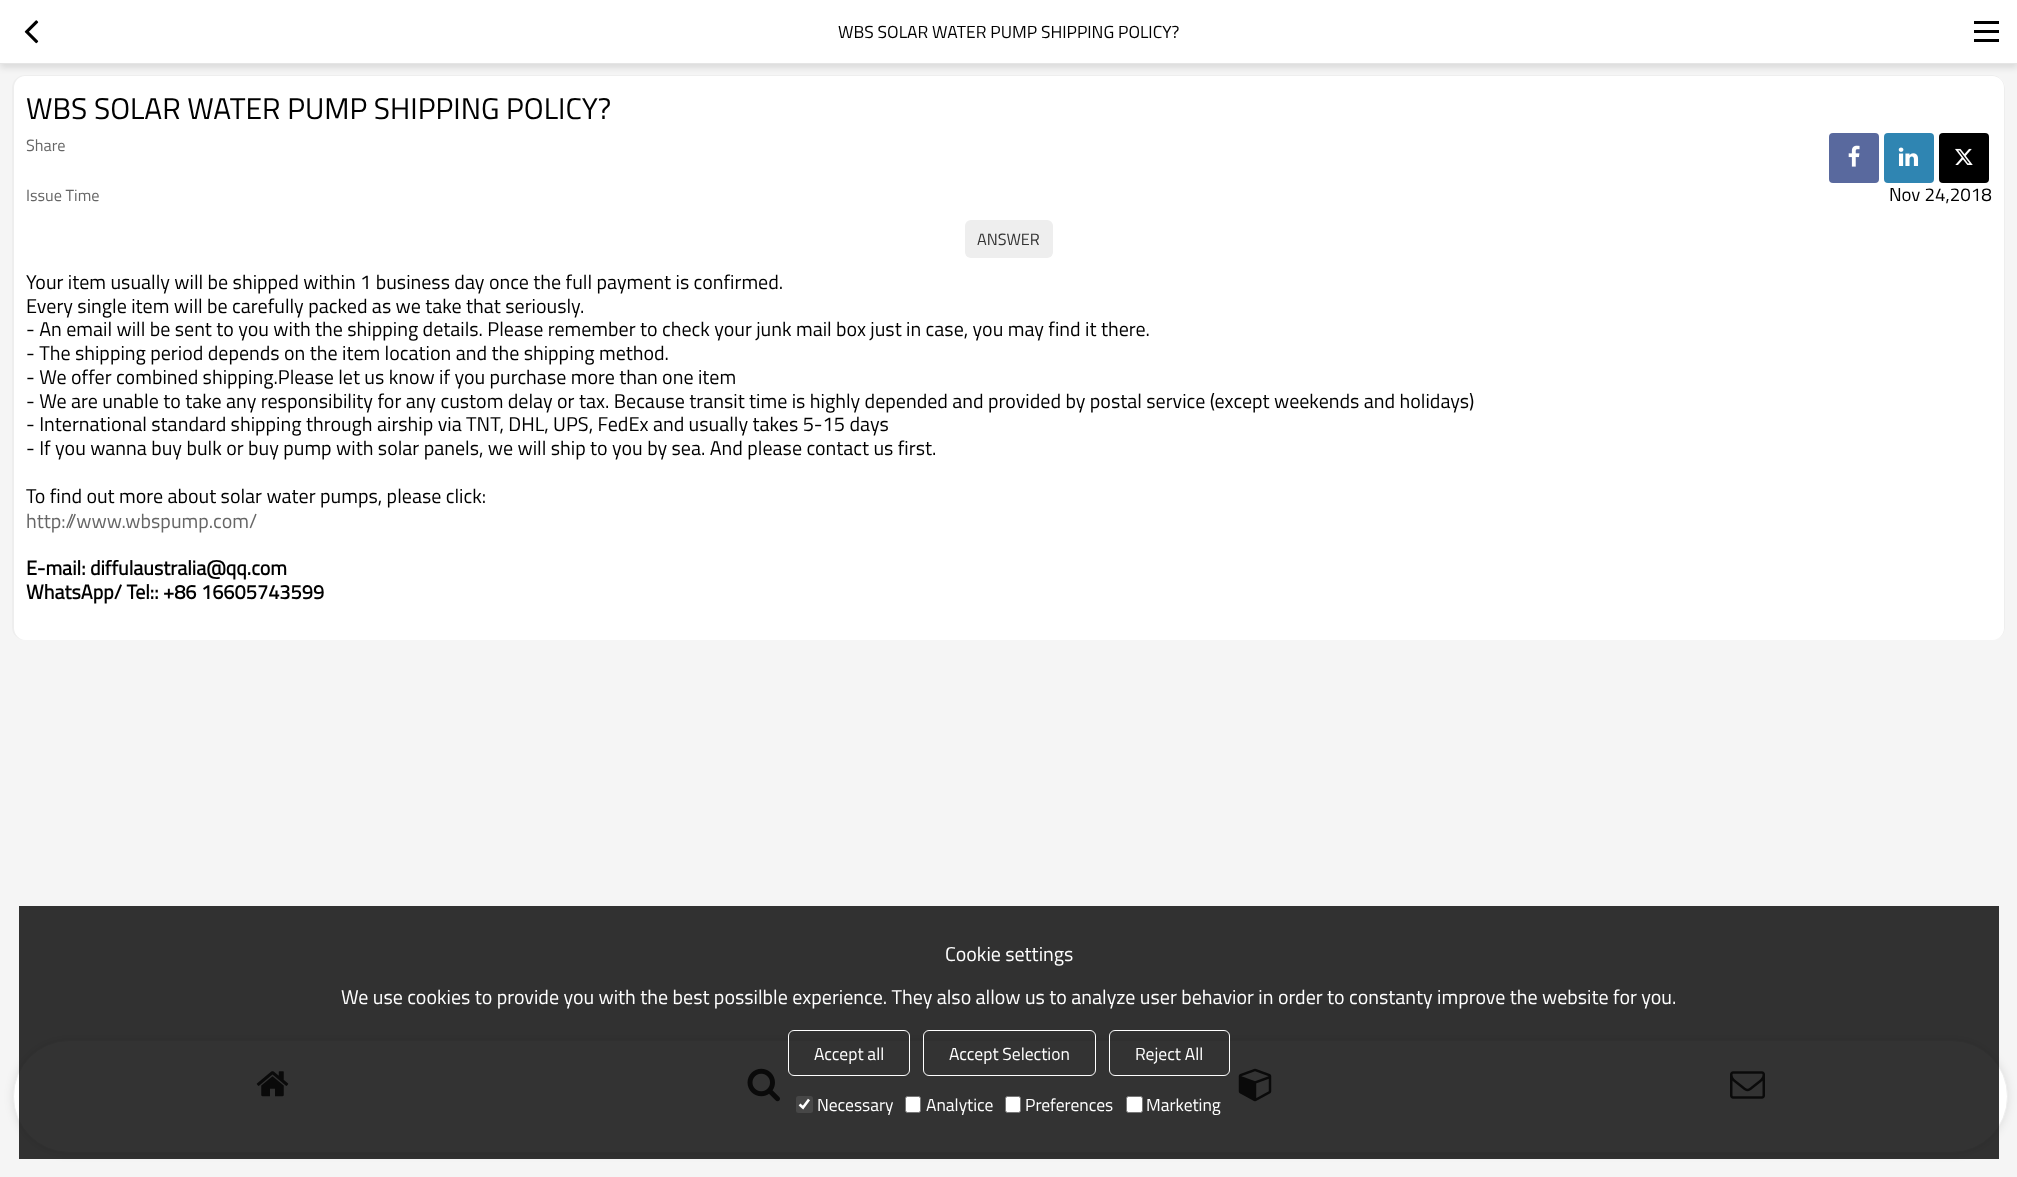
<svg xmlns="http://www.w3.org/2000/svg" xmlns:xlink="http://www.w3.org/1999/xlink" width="2017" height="1177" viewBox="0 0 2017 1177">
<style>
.cls-1{font:17.5px Titillium Web;fill:#000000}
.cls-2{font:30px Titillium Web;fill:#000000}
.cls-3{font:16.25px Titillium Web;fill:#666666}
.cls-4{font:18.75px Titillium Web;fill:#000000}
.cls-5{font:16.25px Titillium Web;fill:#333333}
.cls-6{font:20px Titillium Web;fill:#000000}
.cls-7{font:20px Titillium Web;fill:#666666}
.cls-8{font:bold 20px Titillium Web;fill:#000000}
.cls-9{font:20px Titillium Web;fill:#ffffff}
.cls-10{font:17.5px Titillium Web;fill:#ffffff}
</style>
<rect width="100%" height="100%" fill="#f5f5f5"/>
<rect fill="#ffffff" x="13" y="75" width="1992" height="565" rx="13"/>
<path fill="#eeeeee" fill-rule="evenodd" d="M25 75H1992C1999 75 2005 81 2005 88V628C2005 634 1999 640 1992 640H25C18 640 12 634 12 628V88C12 81 18 75 25 75ZM25 76H1992C1999 76 2004 81 2004 88V628C2004 634 1999 640 1992 640H25C19 640 14 634 14 628V88C14 81 19 76 25 76Z"/>
<rect fill="#000000" fill-opacity="0.1" filter="blur(3px)" x="0" y="4" width="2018" height="64"/>
<rect fill="#ffffff" x="0" y="0" width="2017" height="63"/>
<rect fill="#e5e5e5" x="0" y="63" width="2017" height="1"/>
<image xlink:href="image0.png" x="24" y="20" width="15" height="24"/>
<rect fill="#000000" x="1974" y="21" width="25" height="3"/>
<rect fill="#000000" x="1974" y="30" width="25" height="3"/>
<rect fill="#000000" x="1974" y="39" width="25" height="3"/>
<rect fill="#59699e" x="1829" y="133" width="50" height="50" rx="4"/>
<image xlink:href="image1.png" x="1848" y="145" width="12" height="22"/>
<rect fill="#2f85b2" x="1884" y="133" width="50" height="50" rx="4"/>
<image xlink:href="image2.png" x="1898" y="147" width="21" height="19"/>
<rect fill="#000000" x="1939" y="133" width="50" height="50" rx="4"/>
<image xlink:href="image3.png" x="1955" y="148" width="18" height="17"/>
<rect fill="#eeeeee" x="965" y="220" width="88" height="38" rx="6"/>
<rect fill="#000000" fill-opacity="0.1" filter="blur(5px)" x="13" y="1040" width="1995" height="113" rx="56.5"/>
<rect fill="#ffffff" stroke="#eeeeee" x="13.5" y="1040.5" width="1994" height="112" rx="56"/>
<image xlink:href="image4.png" x="256" y="1071" width="33" height="26"/>
<image xlink:href="image5.png" x="747" y="1068" width="33" height="34"/>
<image xlink:href="image6.png" x="1238" y="1068" width="34" height="34"/>
<image xlink:href="image7.png" x="1730" y="1071" width="35" height="28"/>
<rect fill="#000000" fill-opacity="0.8" x="19" y="906" width="1980" height="253"/>
<rect fill="none" stroke="#ffffff" x="788.5" y="1030.5" width="121" height="45" rx="5.5"/>
<rect fill="none" stroke="#ffffff" x="923.5" y="1030.5" width="172" height="45" rx="5.5"/>
<rect fill="none" stroke="#ffffff" x="1109.5" y="1030.5" width="120" height="45" rx="5.5"/>
<rect fill="#474747" x="796" y="1096" width="17" height="17" rx="2.5"/>
<path fill="none" stroke="#ffffff" stroke-width="2.6" d="M799.5 1104.5L803 1107.5L809 1099.5"/>
<rect fill="#ffffff" stroke="#767676" x="905.5" y="1096.5" width="15" height="16" rx="2"/>
<rect fill="#ffffff" stroke="#767676" x="1005.5" y="1096.5" width="15" height="16" rx="2"/>
<rect fill="#ffffff" stroke="#767676" x="1126.5" y="1096.5" width="16" height="16" rx="2"/>
<text class="cls-1" x="838" y="38">WBS SOLAR WATER PUMP SHIPPING POLICY?</text>
<text class="cls-2" x="26" y="119">WBS SOLAR WATER PUMP SHIPPING POLICY?</text>
<text class="cls-3" x="26" y="151">Share</text>
<text class="cls-3" x="26" y="201">Issue Time</text>
<text class="cls-4" x="1889" y="201">Nov 24,2018</text>
<text class="cls-5" x="977" y="245">ANSWER</text>
<text class="cls-6"><tspan x="26" y="289">Your item usually will be shipped within 1 business day once the full payment is confirmed.</tspan><tspan x="26" y="313">Every single item will be carefully packed as we take that seriously.</tspan><tspan x="26" y="336">- An email will be sent to you with the shipping details. Please remember to check your junk mail box just in case, you may find it there.</tspan><tspan x="26" y="360">- The shipping period depends on the item location and the shipping method.</tspan><tspan x="26" y="384">- We offer combined shipping.Please let us know if you purchase more than one item</tspan><tspan x="26" y="408">- We are unable to take any responsibility for any custom delay or tax. Because transit time is highly depended and provided by postal service (except weekends and holidays)</tspan><tspan x="26" y="431">- International standard shipping through airship via TNT, DHL, UPS, FedEx and usually takes 5-15 days</tspan><tspan x="26" y="455">- If you wanna buy bulk or buy pump with solar panels, we will ship to you by sea. And please contact us first.</tspan></text>
<text class="cls-6" x="26" y="503">To find out more about solar water pumps, please click:</text>
<text class="cls-7" x="26" y="528">http://www.wbspump.com/</text>
<text class="cls-8"><tspan x="26" y="575">E-mail: diffulaustralia@qq.com</tspan><tspan x="26" y="599">WhatsApp/ Tel:: +86 16605743599</tspan></text>
<text class="cls-9" x="945" y="961">Cookie settings</text>
<text class="cls-9" x="341" y="1004">We use cookies to provide you with the best possilble experience. They also allow us to analyze user behavior in order to constanty improve the website for you.</text>
<text class="cls-10" x="814" y="1060">Accept all</text>
<text class="cls-10" x="949" y="1060">Accept Selection</text>
<text class="cls-10" x="1135" y="1060">Reject All</text>
<text class="cls-10" x="817" y="1111">Necessary</text>
<text class="cls-10" x="926" y="1111">Analytice</text>
<text class="cls-10" x="1025" y="1111">Preferences</text>
<text class="cls-10" x="1146" y="1111">Marketing</text>
</svg>
